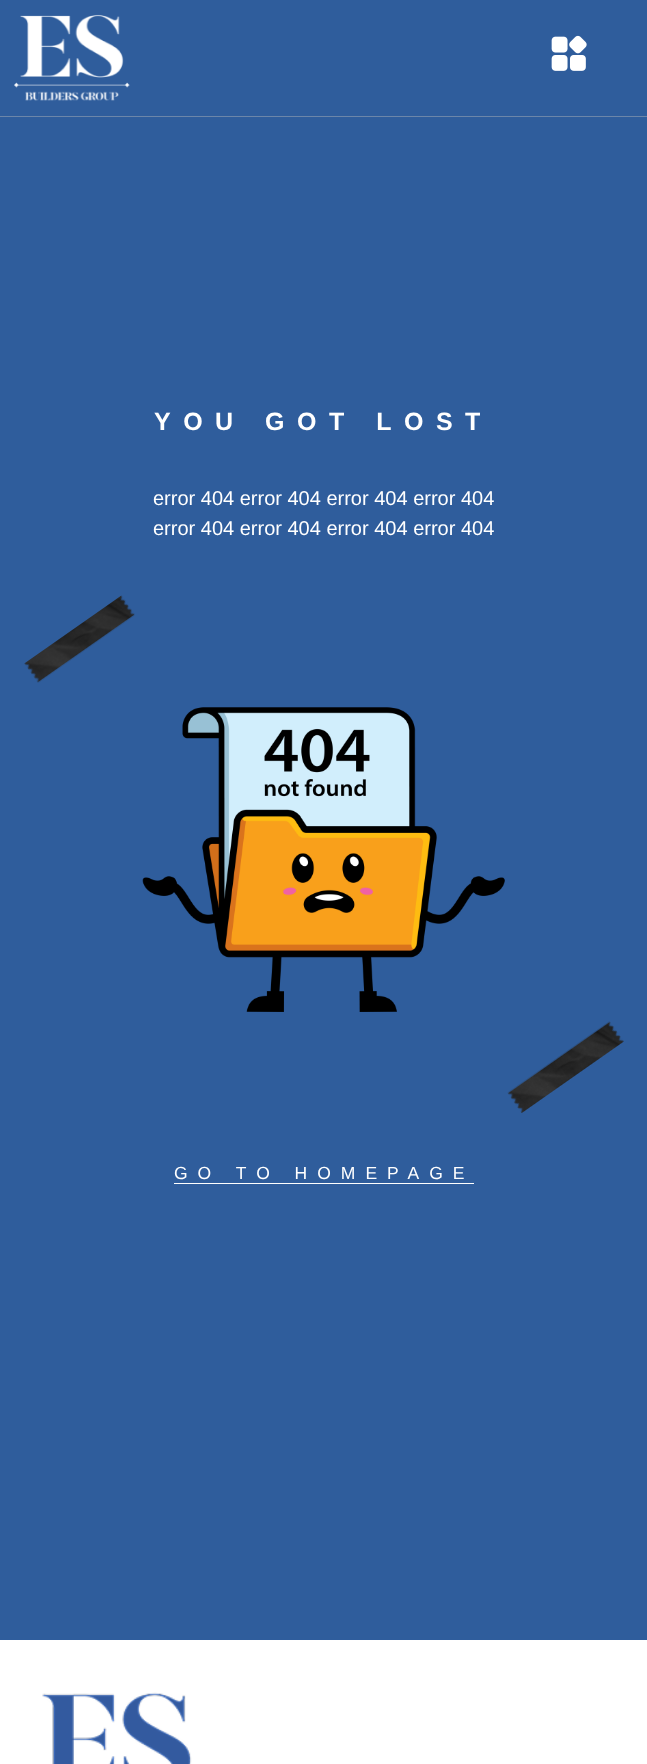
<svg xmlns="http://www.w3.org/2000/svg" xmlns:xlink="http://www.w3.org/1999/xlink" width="647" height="1764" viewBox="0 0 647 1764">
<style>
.cls-1{font:bold 25px Liberation Sans;letter-spacing:12.5px;fill:#ffffff}
.cls-2{font:20px Liberation Sans;fill:#ffffff}
.cls-3{font:17.5px Liberation Sans;letter-spacing:10px;fill:#ffffff}
</style>
<rect width="100%" height="100%" fill="#ffffff"/>
<rect fill="#2f5d9c" x="0" y="0" width="647" height="1640"/>
<rect fill="#6c86a9" x="0" y="116" width="647" height="1"/>
<image xlink:href="image0.png" x="14" y="14" width="116" height="87"/>
<image xlink:href="image1.png" x="551" y="35" width="36" height="36"/>
<image xlink:href="image2.png" x="24" y="595" width="111" height="88"/>
<image xlink:href="image3.png" x="142" y="707" width="363" height="305"/>
<image xlink:href="image4.png" x="507" y="1021" width="117" height="92"/>
<rect fill="#ffffff" x="174" y="1183" width="300" height="1"/>
<image xlink:href="image5.png" x="42" y="1692" width="150" height="72"/>
<text class="cls-1" x="154" y="430">YOU GOT LOST</text>
<text class="cls-2"><tspan x="153" y="505">error 404 error 404 error 404 error 404</tspan><tspan x="153" y="535">error 404 error 404 error 404 error 404</tspan></text>
<text class="cls-3" x="174" y="1179">GO TO HOMEPAGE</text>
</svg>
